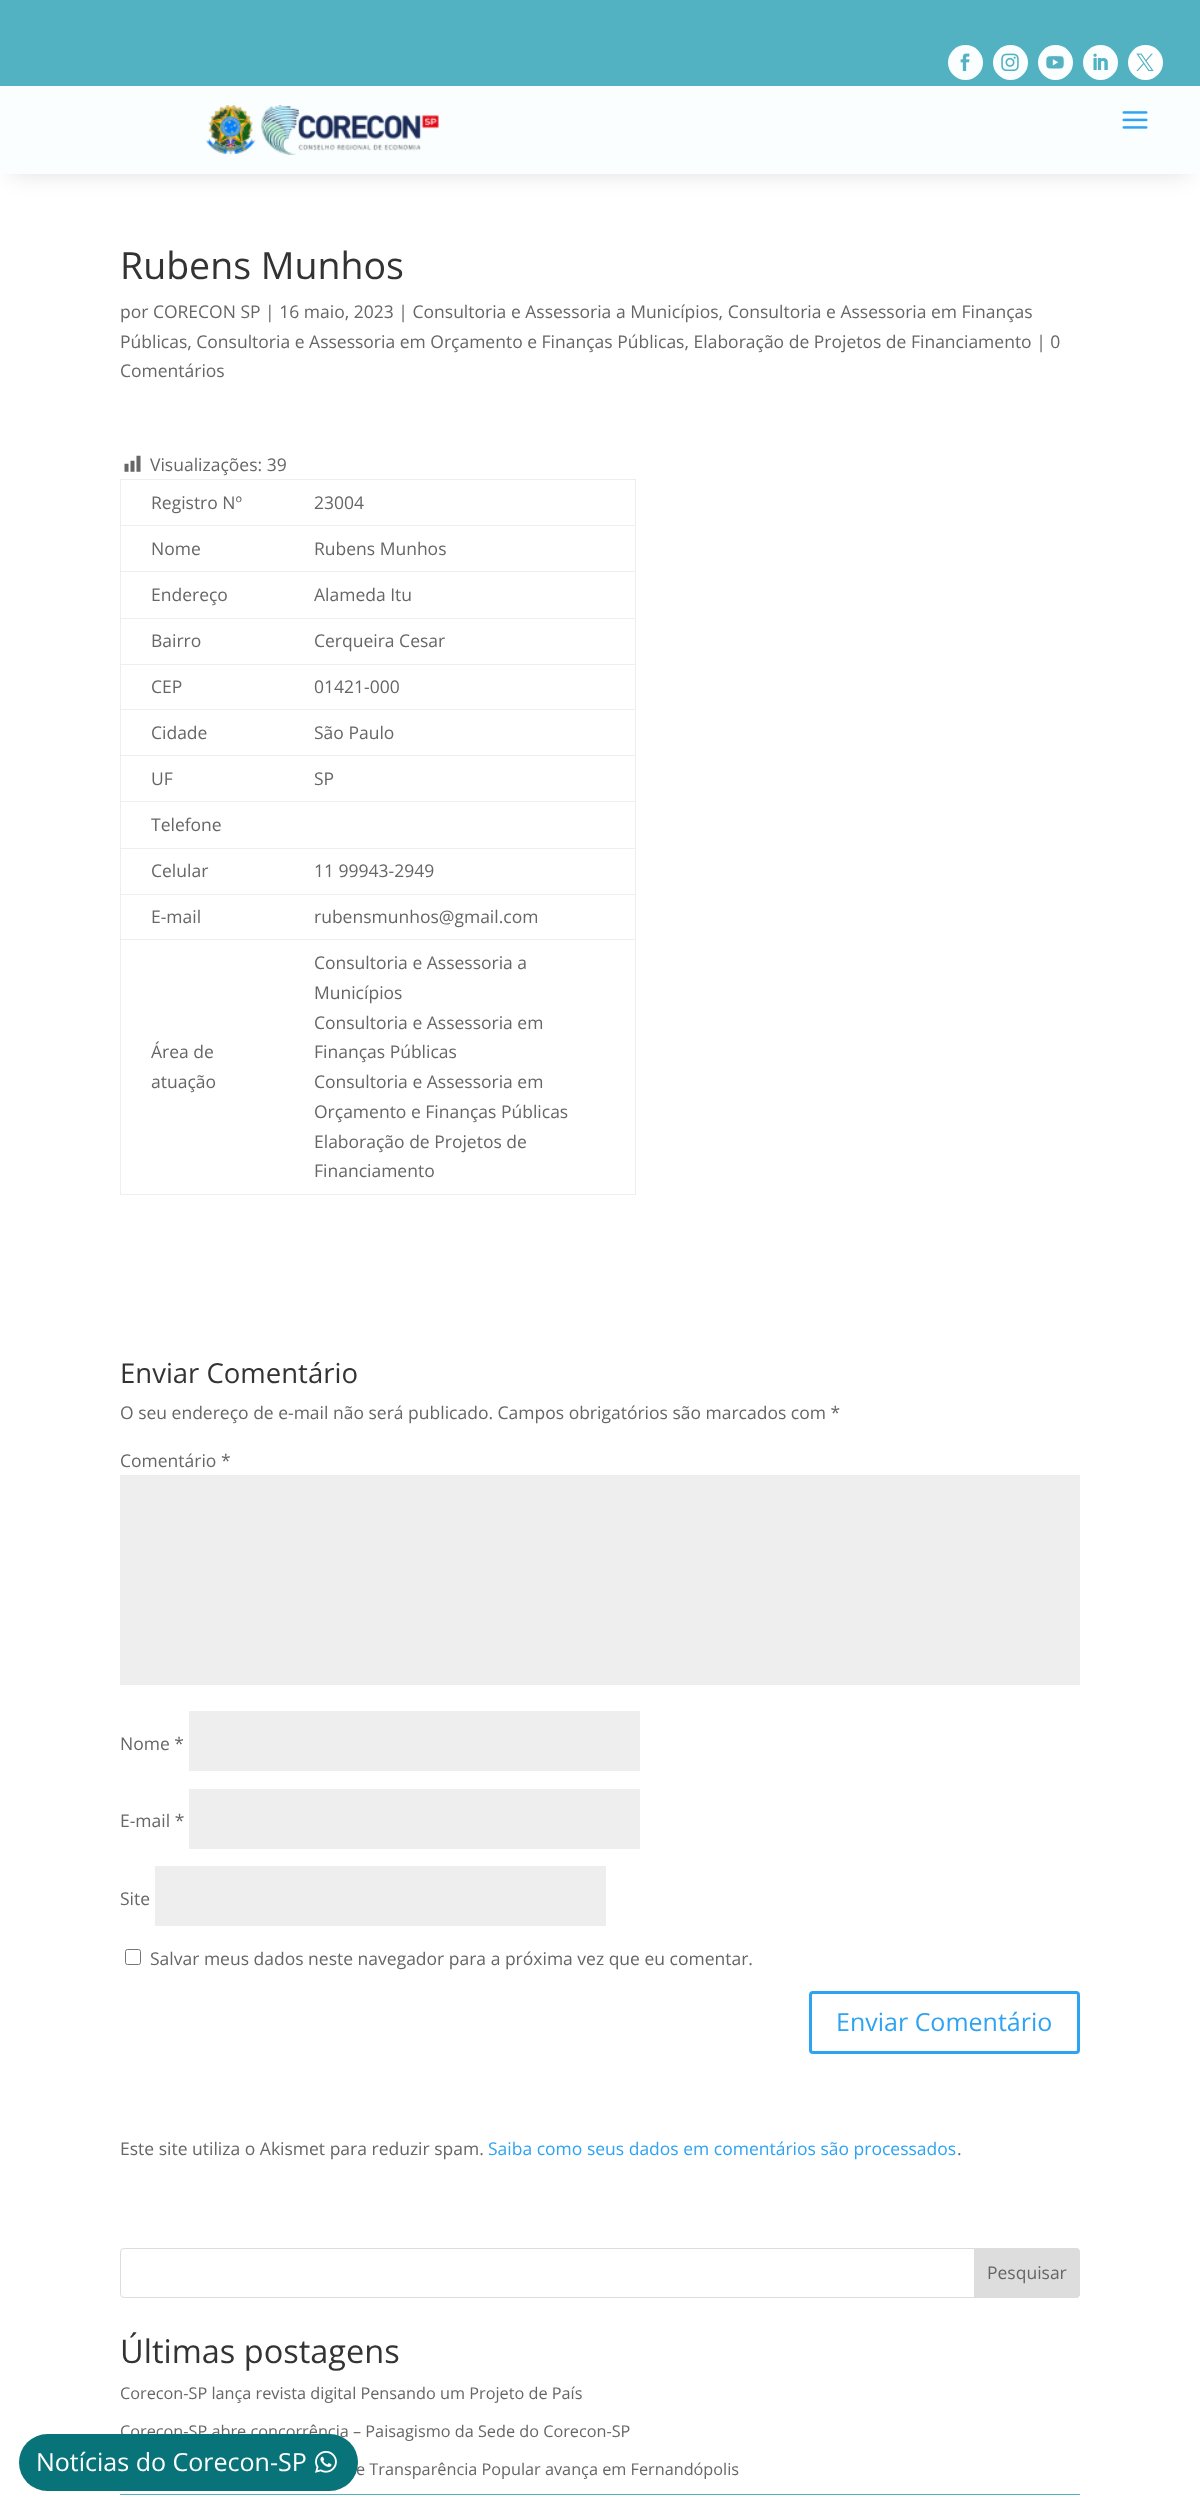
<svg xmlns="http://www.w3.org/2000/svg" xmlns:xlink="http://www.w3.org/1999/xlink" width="1200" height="2512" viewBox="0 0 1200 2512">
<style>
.cls-1{font:37.5px Open Sans;fill:#333333}
.cls-2{font:17.5px Open Sans;fill:#666666}
.cls-3{font:27.5px Open Sans;fill:#333333}
.cls-4{font:25px Open Sans;fill:#2ea3f2}
.cls-5{font:17.5px Open Sans;fill:#2ea3f2}
.cls-6{font:32.5px Open Sans;fill:#333333}
.cls-7{font:16.25px Open Sans;fill:#666666}
.cls-8{font:25px Open Sans;fill:#ffffff}
</style>
<rect width="100%" height="100%" fill="#ffffff"/>
<rect fill="#52b2c1" x="0" y="0" width="1200" height="86"/>
<circle fill="#fafeff" cx="965.5" cy="62.5" r="17.5"/>
<image xlink:href="image0.png" x="960" y="53" width="10" height="19"/>
<circle fill="#fafeff" cx="1010.5" cy="62.5" r="17.5"/>
<image xlink:href="image1.png" x="1001" y="53" width="18" height="19"/>
<circle fill="#fafeff" cx="1055.5" cy="62.5" r="17.5"/>
<image xlink:href="image2.png" x="1046" y="56" width="18" height="13"/>
<circle fill="#fafeff" cx="1100.5" cy="62.5" r="17.5"/>
<image xlink:href="image3.png" x="1093" y="53" width="15" height="17"/>
<circle fill="#ffffff" cx="1145.5" cy="62.5" r="17.5"/>
<image xlink:href="image4.png" x="1136" y="53" width="18" height="19"/>
<rect fill="#000000" fill-opacity="0.12" filter="blur(11px)" x="11" y="109" width="1178" height="65"/>
<rect fill="#fafeff" x="0" y="86" width="1200" height="88"/>
<image xlink:href="image5.png" x="206" y="105" width="233" height="50"/>
<image xlink:href="image6.png" x="1122" y="111" width="26" height="18"/>
<image xlink:href="image7.png" x="124" y="455" width="17" height="17"/>
<rect fill="#eeeeee" x="120" y="479" width="516" height="1"/>
<rect fill="#eeeeee" x="635" y="479" width="1" height="716"/>
<rect fill="#eeeeee" x="120" y="1194" width="516" height="1"/>
<rect fill="#eeeeee" x="120" y="479" width="1" height="716"/>
<rect fill="#eeeeee" x="120" y="525" width="516" height="1"/>
<rect fill="#eeeeee" x="120" y="571" width="516" height="1"/>
<rect fill="#eeeeee" x="120" y="618" width="516" height="1"/>
<rect fill="#eeeeee" x="120" y="664" width="516" height="1"/>
<rect fill="#eeeeee" x="120" y="709" width="516" height="1"/>
<rect fill="#eeeeee" x="120" y="755" width="516" height="1"/>
<rect fill="#eeeeee" x="120" y="801" width="516" height="1"/>
<rect fill="#eeeeee" x="120" y="848" width="516" height="1"/>
<rect fill="#eeeeee" x="120" y="894" width="516" height="1"/>
<rect fill="#eeeeee" x="120" y="939" width="516" height="1"/>
<rect fill="#eeeeee" x="120" y="1475" width="960" height="210"/>
<rect fill="#eeeeee" x="189" y="1711" width="451" height="60"/>
<rect fill="#eeeeee" x="189" y="1789" width="451" height="60"/>
<rect fill="#eeeeee" x="155" y="1866" width="451" height="60"/>
<rect fill="none" stroke="#767676" x="125.5" y="1949.5" width="15" height="15" rx="2"/>
<rect fill="none" stroke="#2ea3f2" stroke-width="3" x="810.5" y="1992.5" width="268" height="60" rx="2.5"/>
<rect fill="none" stroke="#dddddd" x="120.5" y="2248.5" width="959" height="49" rx="3.5"/>
<path fill="#dddddd" stroke="#dddddd" d="M974.5 2248.5H1076C1078 2248.5 1079.5 2250 1079.5 2252V2294C1079.5 2296 1078 2297.5 1076 2297.5H974.5Z"/>
<rect fill="#52b2c1" x="120" y="2494" width="960" height="1"/>
<text class="cls-1" x="120" y="279">Rubens Munhos</text>
<text class="cls-2"><tspan x="120" y="318">por CORECON SP | 16 maio, 2023 | Consultoria e Assessoria a Municípios, Consultoria e Assessoria em Finanças</tspan><tspan x="120" y="348">Públicas, Consultoria e Assessoria em Orçamento e Finanças Públicas, Elaboração de Projetos de Financiamento | 0</tspan><tspan x="120" y="377">Comentários</tspan></text>
<text class="cls-2" x="150" y="471">Visualizações: 39</text>
<text class="cls-2" x="151" y="509">Registro Nº</text>
<text class="cls-2" x="314" y="509">23004</text>
<text class="cls-2" x="151" y="555">Nome</text>
<text class="cls-2" x="314" y="555">Rubens Munhos</text>
<text class="cls-2" x="151" y="601">Endereço</text>
<text class="cls-2" x="314" y="601">Alameda Itu</text>
<text class="cls-2" x="151" y="647">Bairro</text>
<text class="cls-2" x="314" y="647">Cerqueira Cesar</text>
<text class="cls-2" x="151" y="693">CEP</text>
<text class="cls-2" x="314" y="693">01421-000</text>
<text class="cls-2" x="151" y="739">Cidade</text>
<text class="cls-2" x="314" y="739">São Paulo</text>
<text class="cls-2" x="151" y="785">UF</text>
<text class="cls-2" x="314" y="785">SP</text>
<text class="cls-2" x="151" y="831">Telefone</text>
<text class="cls-2" x="151" y="877">Celular</text>
<text class="cls-2" x="314" y="877">11 99943-2949</text>
<text class="cls-2" x="151" y="923">E-mail</text>
<text class="cls-2" x="314" y="923">rubensmunhos@gmail.com</text>
<text class="cls-2"><tspan x="151" y="1058">Área de</tspan><tspan x="151" y="1088">atuação</tspan></text>
<text class="cls-2"><tspan x="314" y="969">Consultoria e Assessoria a</tspan><tspan x="314" y="999">Municípios</tspan><tspan x="314" y="1029">Consultoria e Assessoria em</tspan><tspan x="314" y="1058">Finanças Públicas</tspan><tspan x="314" y="1088">Consultoria e Assessoria em</tspan><tspan x="314" y="1118">Orçamento e Finanças Públicas</tspan><tspan x="314" y="1148">Elaboração de Projetos de</tspan><tspan x="314" y="1177">Financiamento</tspan></text>
<text class="cls-3" x="120" y="1383">Enviar Comentário</text>
<text class="cls-2" x="120" y="1419">O seu endereço de e-mail não será publicado. Campos obrigatórios são marcados com *</text>
<text class="cls-2" x="120" y="1467">Comentário *</text>
<text class="cls-2" x="120" y="1750">Nome *</text>
<text class="cls-2" x="120" y="1827">E-mail *</text>
<text class="cls-2" x="120" y="1905">Site</text>
<text class="cls-2" x="150" y="1965">Salvar meus dados neste navegador para a próxima vez que eu comentar.</text>
<text class="cls-4" x="836" y="2031">Enviar Comentário</text>
<text class="cls-2" x="120" y="2155">Este site utiliza o Akismet para reduzir spam.</text>
<text class="cls-5" x="488" y="2155">Saiba como seus dados em comentários são processados</text>
<text class="cls-2" x="957" y="2155">.</text>
<text class="cls-2" x="987" y="2279">Pesquisar</text>
<text class="cls-6" x="120" y="2363">Últimas postagens</text>
<text class="cls-7" x="120" y="2399">Corecon-SP lança revista digital Pensando um Projeto de País</text>
<text class="cls-7" x="120" y="2437">Corecon-SP abre concorrência – Paisagismo da Sede do Corecon-SP</text>
<text class="cls-7" x="356" y="2475">e Transparência Popular avança em Fernandópolis</text>
<rect fill="#087479" x="19" y="2434" width="339" height="57" rx="28.5"/>
<text class="cls-8" x="36" y="2471">Notícias do Corecon-SP</text>
<image xlink:href="image8.png" x="315" y="2450" width="22" height="23"/>
</svg>
